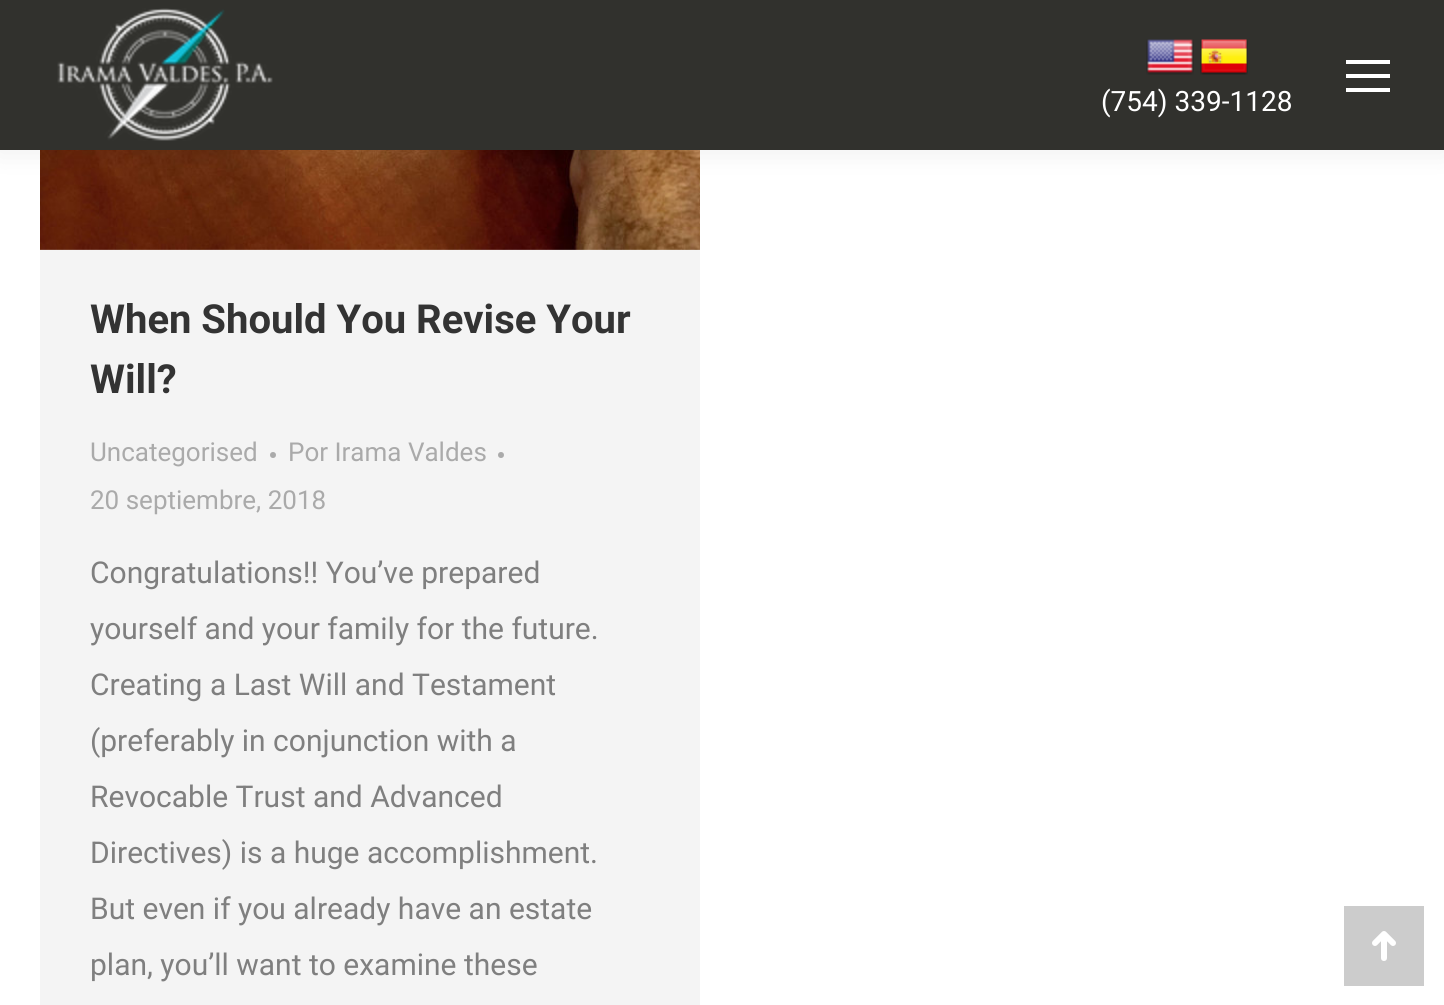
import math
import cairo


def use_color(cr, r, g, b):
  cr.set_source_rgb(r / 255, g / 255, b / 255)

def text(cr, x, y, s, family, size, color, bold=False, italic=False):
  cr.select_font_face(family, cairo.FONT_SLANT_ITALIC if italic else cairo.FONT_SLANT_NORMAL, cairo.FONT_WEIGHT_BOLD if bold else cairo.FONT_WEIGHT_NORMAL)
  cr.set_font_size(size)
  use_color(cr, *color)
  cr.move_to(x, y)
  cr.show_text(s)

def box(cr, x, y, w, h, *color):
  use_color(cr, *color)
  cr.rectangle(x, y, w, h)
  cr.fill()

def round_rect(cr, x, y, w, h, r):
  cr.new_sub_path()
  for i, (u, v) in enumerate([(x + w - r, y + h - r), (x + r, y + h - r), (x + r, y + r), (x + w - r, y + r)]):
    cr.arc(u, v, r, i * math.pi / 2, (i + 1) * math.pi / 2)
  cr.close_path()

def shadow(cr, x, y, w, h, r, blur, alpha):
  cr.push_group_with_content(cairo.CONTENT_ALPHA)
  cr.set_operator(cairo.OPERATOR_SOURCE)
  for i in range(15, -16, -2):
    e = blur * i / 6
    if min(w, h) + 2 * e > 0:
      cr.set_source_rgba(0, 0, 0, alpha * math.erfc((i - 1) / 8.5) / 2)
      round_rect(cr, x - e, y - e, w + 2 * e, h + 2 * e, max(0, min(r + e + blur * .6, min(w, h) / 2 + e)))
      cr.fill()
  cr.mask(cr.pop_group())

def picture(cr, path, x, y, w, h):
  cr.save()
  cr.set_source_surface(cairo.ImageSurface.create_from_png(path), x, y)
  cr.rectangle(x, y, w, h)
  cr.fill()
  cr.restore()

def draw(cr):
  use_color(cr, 255, 255, 255)
  cr.paint()
  box(cr, 40, 249, 660, 756, 244, 244, 244)
  picture(cr, "img_04.png", 40, 150, 660, 100)
  use_color(cr, 0, 0, 0)
  shadow(cr, -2, -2, 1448, 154, 0, 15, 0.07)
  box(cr, 0, 0, 1444, 150, 49, 49, 45)
  picture(cr, "img_01.png", 57, 8, 216, 133)
  box(cr, 1346, 60, 44, 4, 255, 255, 255)
  box(cr, 1346, 74, 44, 4, 255, 255, 255)
  box(cr, 1346, 88, 44, 4, 255, 255, 255)
  picture(cr, "img_02.png", 1146, 39, 48, 36)
  picture(cr, "img_03.png", 1200, 39, 48, 36)
  use_color(cr, 170, 170, 170)
  cr.arc(273, 455, 3, 0, 2 * math.pi)
  cr.fill()
  cr.arc(501, 455, 3, 0, 2 * math.pi)
  cr.fill()
  box(cr, 1344, 906, 80, 80, 204, 204, 204)
  picture(cr, "img_05.png", 1372, 931, 24, 30)
  text(cr, 1101, 111, "(754) 339-1128", "Roboto", 28, (255, 255, 255))
  text(cr, 90, 333, "When Should You Revise Your", "Roboto", 40, (51, 51, 51), bold=True)
  text(cr, 90, 393, "Will?", "Roboto", 40, (51, 51, 51), bold=True)
  text(cr, 90, 461, "Uncategorised", "Roboto", 26, (170, 170, 170))
  text(cr, 288, 461, "Por Irama Valdes", "Roboto", 26, (170, 170, 170))
  text(cr, 90, 509, "20 septiembre, 2018", "Roboto", 26, (170, 170, 170))
  text(cr, 90, 583, "Congratulations!! You’ve prepared", "Roboto", 30, (127, 127, 127))
  text(cr, 90, 639, "yourself and your family for the future.", "Roboto", 30, (127, 127, 127))
  text(cr, 90, 695, "Creating a Last Will and Testament", "Roboto", 30, (127, 127, 127))
  text(cr, 90, 751, "(preferably in conjunction with a", "Roboto", 30, (127, 127, 127))
  text(cr, 90, 807, "Revocable Trust and Advanced", "Roboto", 30, (127, 127, 127))
  text(cr, 90, 863, "Directives) is a huge accomplishment.", "Roboto", 30, (127, 127, 127))
  text(cr, 90, 919, "But even if you already have an estate", "Roboto", 30, (127, 127, 127))
  text(cr, 90, 975, "plan, you’ll want to examine these", "Roboto", 30, (127, 127, 127))


surface = cairo.ImageSurface(cairo.FORMAT_RGB24, 1444, 1005)
cr = cairo.Context(surface)
options = cairo.FontOptions()
options.set_hint_metrics(cairo.HINT_METRICS_OFF)
options.set_hint_style(cairo.HINT_STYLE_NONE)
cr.set_font_options(options)
cr.set_miter_limit(4)
draw(cr)
surface.write_to_png("out.png")
